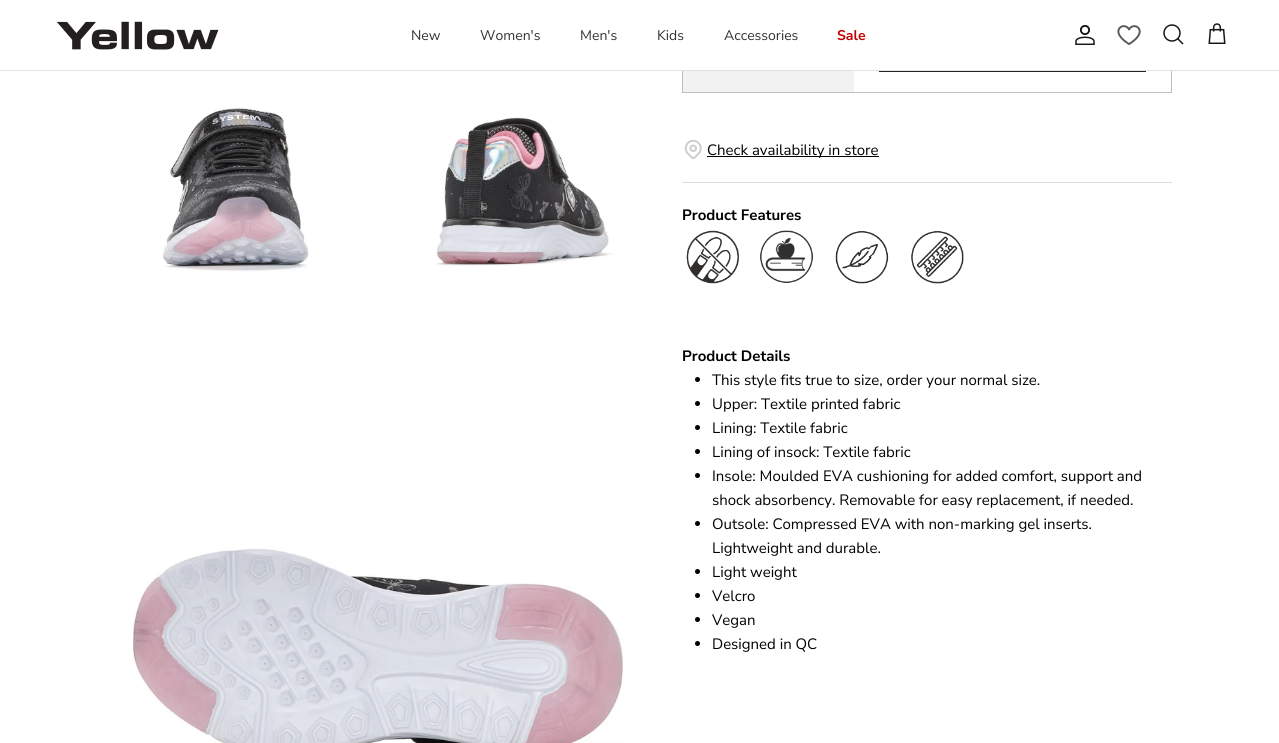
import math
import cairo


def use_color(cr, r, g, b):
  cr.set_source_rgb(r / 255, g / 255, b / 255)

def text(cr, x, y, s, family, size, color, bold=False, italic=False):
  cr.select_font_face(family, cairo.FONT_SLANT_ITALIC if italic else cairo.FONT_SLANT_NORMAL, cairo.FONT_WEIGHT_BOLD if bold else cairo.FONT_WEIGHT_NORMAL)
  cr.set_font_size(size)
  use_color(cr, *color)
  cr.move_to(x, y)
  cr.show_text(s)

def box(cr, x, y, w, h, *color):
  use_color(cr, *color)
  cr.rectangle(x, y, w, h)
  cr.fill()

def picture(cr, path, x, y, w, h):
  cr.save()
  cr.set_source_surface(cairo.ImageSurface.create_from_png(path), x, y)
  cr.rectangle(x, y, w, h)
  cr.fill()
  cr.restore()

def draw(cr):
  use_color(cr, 255, 255, 255)
  cr.paint()
  cr.rectangle(682.5, -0.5, 489, 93)
  use_color(cr, 191, 191, 191)
  cr.set_line_width(1)
  cr.stroke()
  box(cr, 682, 0, 490, 70, 255, 255, 255)
  box(cr, 0, 70, 1279, 1, 223, 227, 232)
  picture(cr, "img_01.png", 57, 21, 162, 29)
  picture(cr, "img_02.png", 1075, 25, 20, 20)
  picture(cr, "img_03.png", 1117, 25, 24, 20)
  cr.arc(1172, 33, 8, 0, 2 * math.pi)
  use_color(cr, 23, 23, 23)
  cr.set_line_width(1.5)
  cr.stroke()
  cr.new_path()
  cr.move_to(1178, 39)
  cr.line_to(1182.5, 43.5)
  cr.set_line_cap(cairo.LINE_CAP_SQUARE)
  cr.stroke()
  picture(cr, "img_04.png", 1208, 23, 18, 21)
  picture(cr, "img_05.png", 163, 108, 146, 164)
  picture(cr, "img_06.png", 435, 117, 179, 149)
  picture(cr, "img_07.png", 133, 548, 491, 195)
  box(cr, 683, 71, 171, 21, 242, 242, 242)
  box(cr, 879, 71, 267, 1, 35, 35, 35)
  picture(cr, "img_08.png", 684, 139, 18, 20)
  box(cr, 707, 156, 172, 1, 0, 0, 0)
  box(cr, 682, 182, 490, 1, 219, 219, 219)
  picture(cr, "img_09.png", 686, 230, 53, 54)
  picture(cr, "img_10.png", 760, 230, 53, 53)
  picture(cr, "img_11.png", 835, 231, 54, 53)
  picture(cr, "img_12.png", 911, 231, 53, 53)
  use_color(cr, 0, 0, 0)
  cr.arc(697.5, 379.5, 2.5, 0, 2 * math.pi)
  cr.fill()
  cr.arc(697.5, 403.5, 2.5, 0, 2 * math.pi)
  cr.fill()
  cr.arc(697.5, 427.5, 2.5, 0, 2 * math.pi)
  cr.fill()
  cr.arc(697.5, 451.5, 2.5, 0, 2 * math.pi)
  cr.fill()
  cr.arc(697.5, 475.5, 2.5, 0, 2 * math.pi)
  cr.fill()
  cr.arc(697.5, 523.5, 2.5, 0, 2 * math.pi)
  cr.fill()
  cr.arc(697.5, 571.5, 2.5, 0, 2 * math.pi)
  cr.fill()
  cr.arc(697.5, 595.5, 2.5, 0, 2 * math.pi)
  cr.fill()
  cr.arc(697.5, 619.5, 2.5, 0, 2 * math.pi)
  cr.fill()
  cr.arc(697.5, 643.5, 2.5, 0, 2 * math.pi)
  cr.fill()
  text(cr, 411, 40, "New", "Nunito Sans", 14, (51, 51, 51))
  text(cr, 480, 40, "Women's", "Nunito Sans", 14, (51, 51, 51))
  text(cr, 580, 40, "Men's", "Nunito Sans", 14, (51, 51, 51))
  text(cr, 657, 40, "Kids", "Nunito Sans", 14, (51, 51, 51))
  text(cr, 724, 40, "Accessories", "Nunito Sans", 14, (51, 51, 51))
  text(cr, 837, 40, "Sale", "Nunito Sans", 14, (194, 0, 0), bold=True)
  text(cr, 707, 155, "Check availability in store", "Nunito Sans", 15, (0, 0, 0))
  text(cr, 682, 220, "Product Features", "Nunito Sans", 15, (0, 0, 0), bold=True)
  text(cr, 682, 361, "Product Details", "Nunito Sans", 15, (0, 0, 0), bold=True)
  text(cr, 712, 385, "This style fits true to size, order your normal size.", "Nunito Sans", 15, (0, 0, 0))
  text(cr, 712, 409, "Upper: Textile printed fabric", "Nunito Sans", 15, (0, 0, 0))
  text(cr, 712, 433, "Lining: Textile fabric", "Nunito Sans", 15, (0, 0, 0))
  text(cr, 712, 457, "Lining of insock: Textile fabric", "Nunito Sans", 15, (0, 0, 0))
  text(cr, 712, 481, "Insole: Moulded EVA cushioning for added comfort, support and", "Nunito Sans", 15, (0, 0, 0))
  text(cr, 712, 505, "shock absorbency. Removable for easy replacement, if needed.", "Nunito Sans", 15, (0, 0, 0))
  text(cr, 712, 529, "Outsole: Compressed EVA with non-marking gel inserts.", "Nunito Sans", 15, (0, 0, 0))
  text(cr, 712, 553, "Lightweight and durable.", "Nunito Sans", 15, (0, 0, 0))
  text(cr, 712, 577, "Light weight", "Nunito Sans", 15, (0, 0, 0))
  text(cr, 712, 601, "Velcro", "Nunito Sans", 15, (0, 0, 0))
  text(cr, 712, 625, "Vegan", "Nunito Sans", 15, (0, 0, 0))
  text(cr, 712, 649, "Designed in QC", "Nunito Sans", 15, (0, 0, 0))


surface = cairo.ImageSurface(cairo.FORMAT_RGB24, 1279, 743)
cr = cairo.Context(surface)
options = cairo.FontOptions()
options.set_hint_metrics(cairo.HINT_METRICS_OFF)
options.set_hint_style(cairo.HINT_STYLE_NONE)
cr.set_font_options(options)
cr.set_miter_limit(4)
draw(cr)
surface.write_to_png("out.png")
